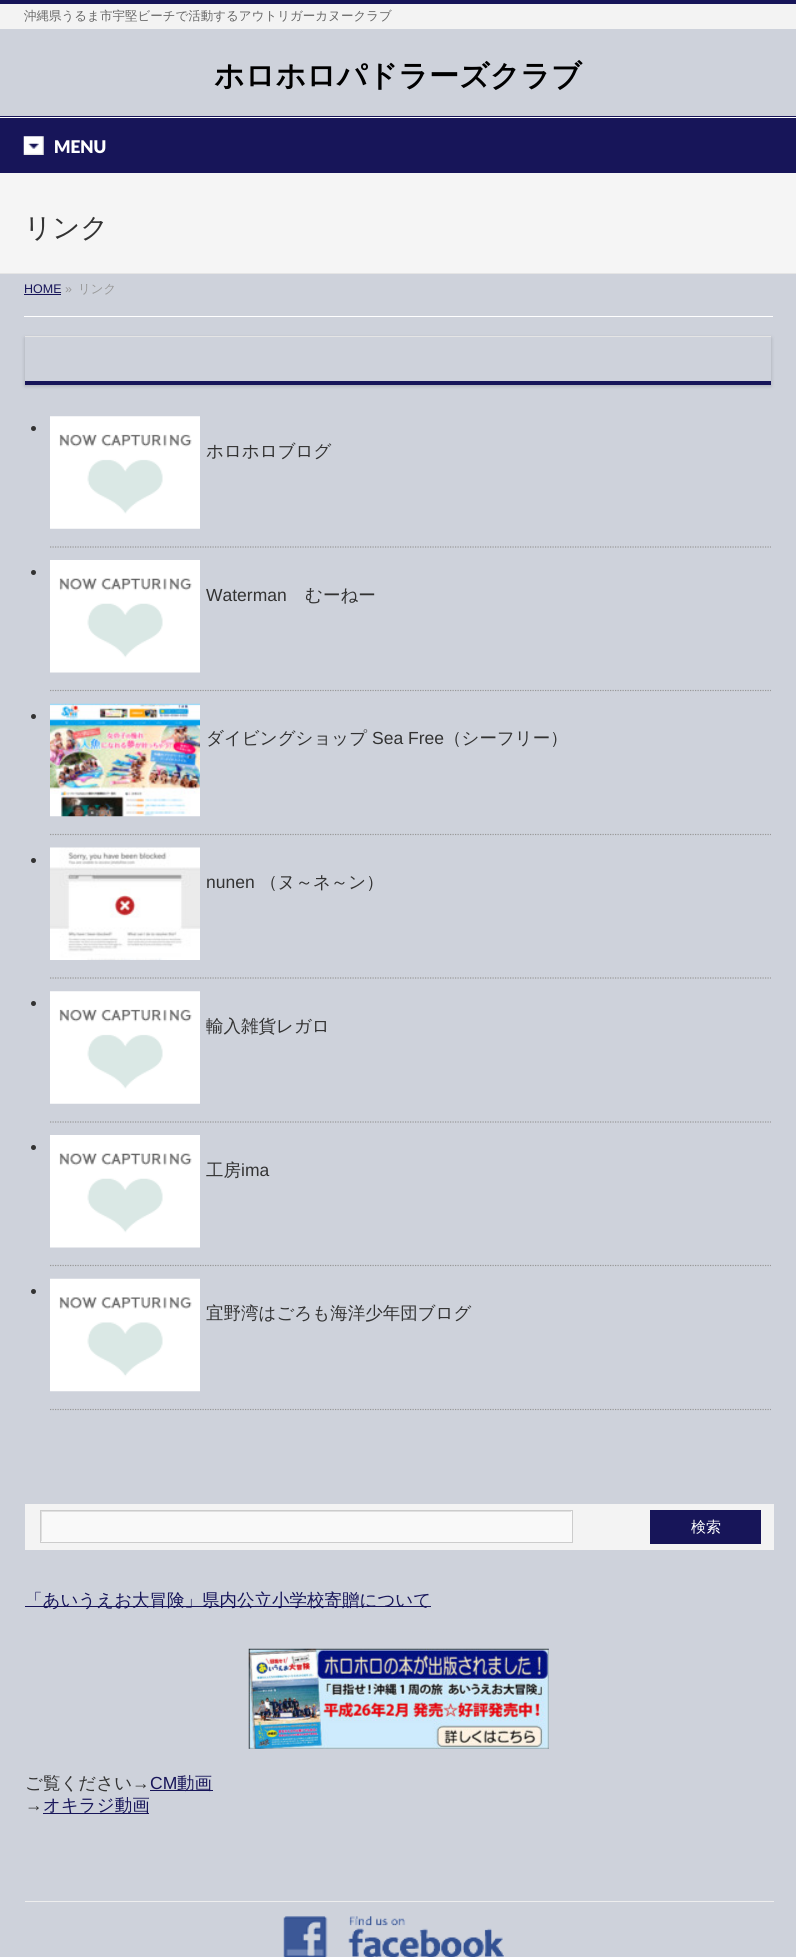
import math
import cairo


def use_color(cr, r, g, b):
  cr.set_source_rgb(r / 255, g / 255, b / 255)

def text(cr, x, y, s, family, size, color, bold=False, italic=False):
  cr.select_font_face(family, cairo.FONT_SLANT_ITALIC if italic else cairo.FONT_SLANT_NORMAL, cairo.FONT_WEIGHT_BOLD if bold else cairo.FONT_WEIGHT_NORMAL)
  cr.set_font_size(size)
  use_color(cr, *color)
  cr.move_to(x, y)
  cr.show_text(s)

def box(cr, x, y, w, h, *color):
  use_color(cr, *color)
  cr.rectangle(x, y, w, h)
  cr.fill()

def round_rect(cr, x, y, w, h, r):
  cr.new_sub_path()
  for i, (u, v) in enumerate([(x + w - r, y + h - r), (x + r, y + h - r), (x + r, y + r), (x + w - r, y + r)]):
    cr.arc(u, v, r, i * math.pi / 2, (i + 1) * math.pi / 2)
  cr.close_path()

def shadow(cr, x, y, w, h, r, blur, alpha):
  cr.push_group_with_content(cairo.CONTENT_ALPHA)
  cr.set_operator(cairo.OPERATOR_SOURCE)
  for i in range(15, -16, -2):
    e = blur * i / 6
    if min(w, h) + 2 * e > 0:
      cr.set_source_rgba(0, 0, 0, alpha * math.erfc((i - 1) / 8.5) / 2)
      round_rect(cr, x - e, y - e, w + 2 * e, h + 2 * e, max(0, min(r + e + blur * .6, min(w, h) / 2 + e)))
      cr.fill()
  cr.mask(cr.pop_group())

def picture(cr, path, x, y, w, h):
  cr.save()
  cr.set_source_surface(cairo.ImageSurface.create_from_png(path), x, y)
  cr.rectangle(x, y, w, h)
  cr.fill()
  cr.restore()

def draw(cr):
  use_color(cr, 206, 210, 219)
  cr.paint()
  box(cr, 0, 4, 796, 25, 243, 243, 243)
  box(cr, 0, 0, 796, 4, 23, 21, 89)
  box(cr, 0, 117, 796, 1, 255, 255, 255)
  box(cr, 0, 116, 796, 1, 23, 21, 89)
  box(cr, 0, 118, 796, 55, 23, 21, 89)
  picture(cr, "img_01.png", 23, 136, 21, 19)
  box(cr, 0, 173, 796, 100, 245, 245, 245)
  box(cr, 0, 273, 796, 1, 229, 229, 229)
  box(cr, 24, 316, 749, 1, 255, 255, 255)
  box(cr, 24, 294, 37, 1, 23, 21, 89)
  cr.save()
  cr.set_fill_rule(cairo.FILL_RULE_EVEN_ODD)
  cr.new_path()
  cr.move_to(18, 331)
  cr.line_to(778, 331)
  cr.line_to(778, 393)
  cr.line_to(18, 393)
  cr.close_path()
  cr.move_to(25, 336)
  cr.line_to(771, 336)
  cr.line_to(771, 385)
  cr.line_to(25, 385)
  cr.close_path()
  cr.clip()
  use_color(cr, 0, 0, 0)
  shadow(cr, 25, 338, 746, 48, 0, 2, 0.2)
  cr.restore()
  box(cr, 25, 336, 746, 1, 229, 229, 229)
  box(cr, 25, 381, 746, 4, 23, 21, 89)
  cr.new_path()
  cr.move_to(50, 547)
  cr.line_to(771, 547)
  use_color(cr, 153, 153, 153)
  cr.set_line_width(1.2)
  cr.set_dash([1.25, 1.25])
  cr.stroke()
  use_color(cr, 51, 51, 51)
  cr.arc(33.5, 428.5, 2.5, 0, 2 * math.pi)
  cr.fill()
  picture(cr, "img_02.png", 50, 416, 150, 113)
  cr.new_path()
  cr.move_to(50, 690.5)
  cr.line_to(771, 690.5)
  use_color(cr, 153, 153, 153)
  cr.stroke()
  use_color(cr, 51, 51, 51)
  cr.arc(33.5, 572.5, 2.5, 0, 2 * math.pi)
  cr.fill()
  picture(cr, "img_03.png", 50, 560, 150, 113)
  cr.new_path()
  cr.move_to(50, 834.5)
  cr.line_to(771, 834.5)
  use_color(cr, 153, 153, 153)
  cr.stroke()
  use_color(cr, 51, 51, 51)
  cr.arc(33.5, 716.5, 2.5, 0, 2 * math.pi)
  cr.fill()
  picture(cr, "img_04.png", 50, 703, 150, 114)
  cr.new_path()
  cr.move_to(50, 978)
  cr.line_to(771, 978)
  use_color(cr, 153, 153, 153)
  cr.stroke()
  use_color(cr, 51, 51, 51)
  cr.arc(33.5, 860.5, 2.5, 0, 2 * math.pi)
  cr.fill()
  picture(cr, "img_05.png", 50, 847, 150, 113)
  cr.new_path()
  cr.move_to(50, 1122)
  cr.line_to(771, 1122)
  use_color(cr, 153, 153, 153)
  cr.stroke()
  use_color(cr, 51, 51, 51)
  cr.arc(33.5, 1003.5, 2.5, 0, 2 * math.pi)
  cr.fill()
  picture(cr, "img_02.png", 50, 991, 150, 113)
  cr.new_path()
  cr.move_to(50, 1265.5)
  cr.line_to(771, 1265.5)
  use_color(cr, 153, 153, 153)
  cr.stroke()
  use_color(cr, 51, 51, 51)
  cr.arc(33.5, 1147.5, 2.5, 0, 2 * math.pi)
  cr.fill()
  picture(cr, "img_06.png", 50, 1135, 150, 113)
  cr.new_path()
  cr.move_to(50, 1409.5)
  cr.line_to(771, 1409.5)
  use_color(cr, 153, 153, 153)
  cr.stroke()
  use_color(cr, 51, 51, 51)
  cr.arc(33.5, 1291.5, 2.5, 0, 2 * math.pi)
  cr.fill()
  picture(cr, "img_07.png", 50, 1278, 150, 114)
  box(cr, 25, 1504, 749, 46, 243, 243, 243)
  box(cr, 41, 1511, 531, 31, 249, 249, 249)
  cr.save()
  cr.rectangle(41, 1511, 530, 30)
  cr.clip()
  use_color(cr, 224, 224, 224)
  cr.set_fill_rule(cairo.FILL_RULE_EVEN_ODD)
  cr.new_path()
  cr.move_to(-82, 1388)
  cr.line_to(695, 1388)
  cr.line_to(695, 1665)
  cr.line_to(-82, 1665)
  cr.close_path()
  cr.move_to(42, 1512)
  cr.line_to(572, 1512)
  cr.line_to(572, 1542)
  cr.line_to(42, 1542)
  cr.close_path()
  cr.fill()
  cr.restore()
  cr.rectangle(40.5, 1510.5, 532, 32)
  use_color(cr, 204, 204, 204)
  cr.set_line_width(1)
  cr.set_dash([])
  cr.stroke()
  box(cr, 650, 1510, 111, 34, 23, 21, 89)
  box(cr, 25, 1606, 406, 1, 23, 21, 89)
  picture(cr, "img_08.png", 248, 1648, 301, 101)
  box(cr, 150, 1790, 63, 1, 23, 21, 89)
  box(cr, 43, 1813, 106, 1, 23, 21, 89)
  box(cr, 25, 1901, 749, 1, 238, 238, 238)
  picture(cr, "img_09.png", 283, 1916, 221, 41)
  text(cr, 24, 20, "沖縄県うるま市宇堅ビーチで活動するアウトリガーカヌークラブ", "WenQuanYi Zen Hei Medium", 12.5, (102, 102, 102))
  text(cr, 214, 86, "ホロホロパドラーズクラブ", "WenQuanYi Zen Hei", 30, (0, 0, 0), bold=True)
  text(cr, 54, 153, "MENU", "Lato Black", 17.5, (255, 255, 255))
  text(cr, 24, 237, "リンク", "WenQuanYi Zen Hei Medium", 27.5, (51, 51, 51))
  text(cr, 24, 293, "HOME", "Liberation Sans", 12.5, (23, 21, 89))
  text(cr, 65, 293, "»", "Liberation Sans", 12.5, (153, 153, 153))
  text(cr, 78, 293, "リンク", "WenQuanYi Zen Hei Medium", 12.5, (153, 153, 153))
  text(cr, 206, 457, "ホロホロブログ", "WenQuanYi Zen Hei Medium", 17.5, (51, 51, 51))
  text(cr, 206, 601, "Waterman", "Liberation Sans", 17.5, (51, 51, 51))
  text(cr, 305, 601, "むーねー", "WenQuanYi Zen Hei Medium", 17.5, (51, 51, 51))
  text(cr, 206, 744, "ダイビングショップ", "WenQuanYi Zen Hei Medium", 17.5, (51, 51, 51))
  text(cr, 372, 744, "Sea Free", "Liberation Sans", 17.5, (51, 51, 51))
  text(cr, 444, 744, "（シーフリー）", "WenQuanYi Zen Hei Medium", 17.5, (51, 51, 51))
  text(cr, 206, 888, "nunen", "Liberation Sans", 17.5, (51, 51, 51))
  text(cr, 260, 888, "（ヌ～ネ～ン）", "WenQuanYi Zen Hei Medium", 17.5, (51, 51, 51))
  text(cr, 206, 1032, "輸入雑貨レガロ", "WenQuanYi Zen Hei Medium", 17.5, (51, 51, 51))
  text(cr, 206, 1176, "工房", "WenQuanYi Zen Hei Medium", 17.5, (51, 51, 51))
  text(cr, 241, 1176, "ima", "Liberation Sans", 17.5, (51, 51, 51))
  text(cr, 206, 1319, "宜野湾はごろも海洋少年団ブログ", "WenQuanYi Zen Hei Medium", 17.5, (51, 51, 51))
  text(cr, 691, 1532, "検索", "WenQuanYi Zen Hei Medium", 15, (255, 255, 255))
  text(cr, 25, 1606, "「あいうえお大冒険」県内公立小学校寄贈について", "WenQuanYi Zen Hei Medium", 17.5, (23, 21, 89))
  text(cr, 25, 1789, "ご覧ください", "WenQuanYi Zen Hei Medium", 17.5, (51, 51, 51))
  text(cr, 132, 1789, "→", "Liberation Sans", 17.5, (51, 51, 51))
  text(cr, 150, 1789, "CM", "Liberation Sans", 17.5, (23, 21, 89))
  text(cr, 177, 1789, "動画", "WenQuanYi Zen Hei Medium", 17.5, (23, 21, 89))
  text(cr, 25, 1811, "→", "Liberation Sans", 17.5, (51, 51, 51))
  text(cr, 43, 1811, "オキラジ動画", "WenQuanYi Zen Hei Medium", 17.5, (23, 21, 89))


surface = cairo.ImageSurface(cairo.FORMAT_RGB24, 796, 1957)
cr = cairo.Context(surface)
options = cairo.FontOptions()
options.set_hint_metrics(cairo.HINT_METRICS_OFF)
options.set_hint_style(cairo.HINT_STYLE_NONE)
cr.set_font_options(options)
cr.set_miter_limit(4)
draw(cr)
surface.write_to_png("out.png")
